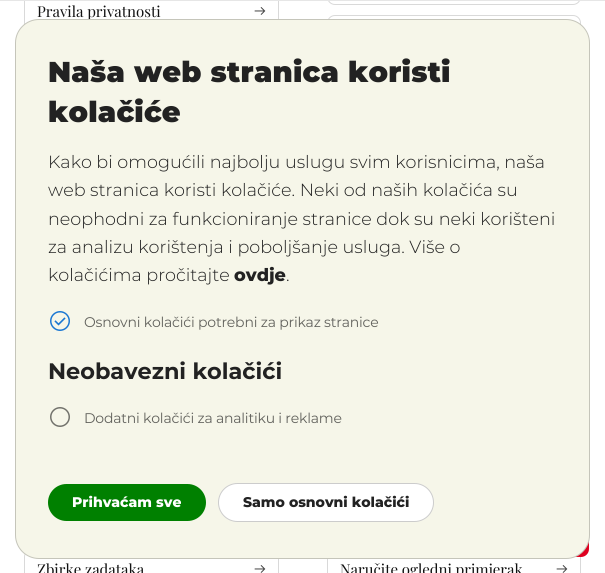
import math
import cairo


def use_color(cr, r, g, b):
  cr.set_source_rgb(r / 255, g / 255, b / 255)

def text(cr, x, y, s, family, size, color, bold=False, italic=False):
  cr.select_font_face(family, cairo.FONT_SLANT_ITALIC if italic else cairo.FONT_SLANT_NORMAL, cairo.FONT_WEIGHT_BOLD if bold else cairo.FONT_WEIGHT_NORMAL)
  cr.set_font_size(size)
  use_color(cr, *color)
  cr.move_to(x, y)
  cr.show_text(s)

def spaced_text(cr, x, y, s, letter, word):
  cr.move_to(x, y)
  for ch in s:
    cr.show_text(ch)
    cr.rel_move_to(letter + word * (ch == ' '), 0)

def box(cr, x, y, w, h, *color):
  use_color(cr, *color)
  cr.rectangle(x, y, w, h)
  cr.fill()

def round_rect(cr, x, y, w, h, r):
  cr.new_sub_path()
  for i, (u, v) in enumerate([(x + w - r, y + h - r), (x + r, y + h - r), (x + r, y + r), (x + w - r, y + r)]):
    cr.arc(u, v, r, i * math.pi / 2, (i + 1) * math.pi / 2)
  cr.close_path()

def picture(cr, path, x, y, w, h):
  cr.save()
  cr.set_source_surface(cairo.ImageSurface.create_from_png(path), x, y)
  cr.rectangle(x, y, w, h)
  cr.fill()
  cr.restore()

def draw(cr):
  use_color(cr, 255, 255, 255)
  cr.paint()
  cr.rectangle(24.5, -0.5, 254, 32)
  use_color(cr, 217, 217, 217)
  cr.set_line_width(1)
  cr.stroke()
  round_rect(cr, 327.5, -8.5, 253, 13, 7.5)
  cr.stroke()
  box(cr, 0, 0, 605, 1, 230, 230, 230)
  picture(cr, "img_01.png", 254, 7, 12, 8)
  round_rect(cr, 327.5, 15.5, 253, 40, 7.5)
  use_color(cr, 217, 217, 217)
  cr.stroke()
  round_rect(cr, 24.5, 549.5, 254, 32, 7.5)
  cr.stroke()
  picture(cr, "img_01.png", 254, 565, 12, 8)
  cr.rectangle(327.5, 549.5, 253, 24)
  cr.stroke()
  picture(cr, "img_01.png", 556, 565, 12, 8)
  use_color(cr, 222, 0, 31)
  round_rect(cr, 541, 509, 48, 48, 8)
  cr.fill()
  text(cr, 37, 17, "Pravila privatnosti", "Playfair Display", 15, (17, 17, 17))
  text(cr, 37, 575, "Zbirke zadataka", "Playfair Display", 15, (17, 17, 17))
  text(cr, 340, 575, "Naručite ogledni primjerak", "Playfair Display", 15, (17, 17, 17))
  use_color(cr, 246, 246, 233)
  round_rect(cr, 15, 19, 575, 540, 24)
  cr.fill()
  round_rect(cr, 15.5, 19.5, 574, 539, 23.5)
  cr.set_source_rgba(0, 0, 0, 0.2)
  cr.stroke()
  cr.select_font_face("Montserrat Black")
  cr.set_font_size(28.75)
  use_color(cr, 34, 34, 34)
  spaced_text(cr, 48, 82, "Naša web stranica koristi", 0.25, 0)
  spaced_text(cr, 48, 122, "kolačiće", 0.25, 0)
  text(cr, 48, 168, "Kako bi omogućili najbolju uslugu svim korisnicima, naša", "Montserrat Light", 17.6, (34, 34, 34))
  text(cr, 48, 196, "web stranica koristi kolačiće. Neki od naših kolačića su", "Montserrat Light", 17.6, (34, 34, 34))
  text(cr, 48, 225, "neophodni za funkcioniranje stranice dok su neki korišteni", "Montserrat Light", 17.6, (34, 34, 34))
  text(cr, 48, 253, "za analizu korištenja i poboljšanje usluga. Više o", "Montserrat Light", 17.6, (34, 34, 34))
  text(cr, 48, 281, "kolačićima pročitajte", "Montserrat Light", 17.6, (34, 34, 34))
  text(cr, 234, 281, "ovdje", "Montserrat ExtraBold", 17.6, (34, 34, 34))
  text(cr, 286, 281, ".", "Montserrat Light", 17.6, (34, 34, 34))
  picture(cr, "img_02.png", 50, 311, 20, 20)
  cr.select_font_face("Montserrat")
  cr.set_font_size(14)
  use_color(cr, 98, 98, 93)
  spaced_text(cr, 84, 327, "Osnovni kolačići potrebni za prikaz stranice", -0.2, 0)
  text(cr, 48, 379, "Neobavezni kolačići", "Montserrat", 22.4, (34, 34, 34), bold=True)
  picture(cr, "img_03.png", 50, 407, 20, 20)
  cr.select_font_face("Montserrat")
  cr.set_font_size(14)
  use_color(cr, 98, 98, 93)
  spaced_text(cr, 84, 423, "Dodatni kolačići za analitiku i reklame", -0.2, 0)
  use_color(cr, 0, 128, 0)
  round_rect(cr, 48, 484, 158, 37, 18.5)
  cr.fill()
  text(cr, 72, 507, "Prihvaćam sve", "Montserrat ExtraBold", 14, (255, 255, 255))
  round_rect(cr, 218, 483, 216, 39, 19.5)
  cr.fill()
  round_rect(cr, 218.5, 483.5, 215, 38, 19)
  cr.set_source_rgba(0, 0, 0, 0.2)
  cr.stroke()
  text(cr, 243, 507, "Samo osnovni kolačići", "Montserrat ExtraBold", 14, (34, 34, 34))


surface = cairo.ImageSurface(cairo.FORMAT_RGB24, 605, 573)
cr = cairo.Context(surface)
options = cairo.FontOptions()
options.set_hint_metrics(cairo.HINT_METRICS_OFF)
options.set_hint_style(cairo.HINT_STYLE_NONE)
cr.set_font_options(options)
cr.set_miter_limit(4)
draw(cr)
surface.write_to_png("out.png")
